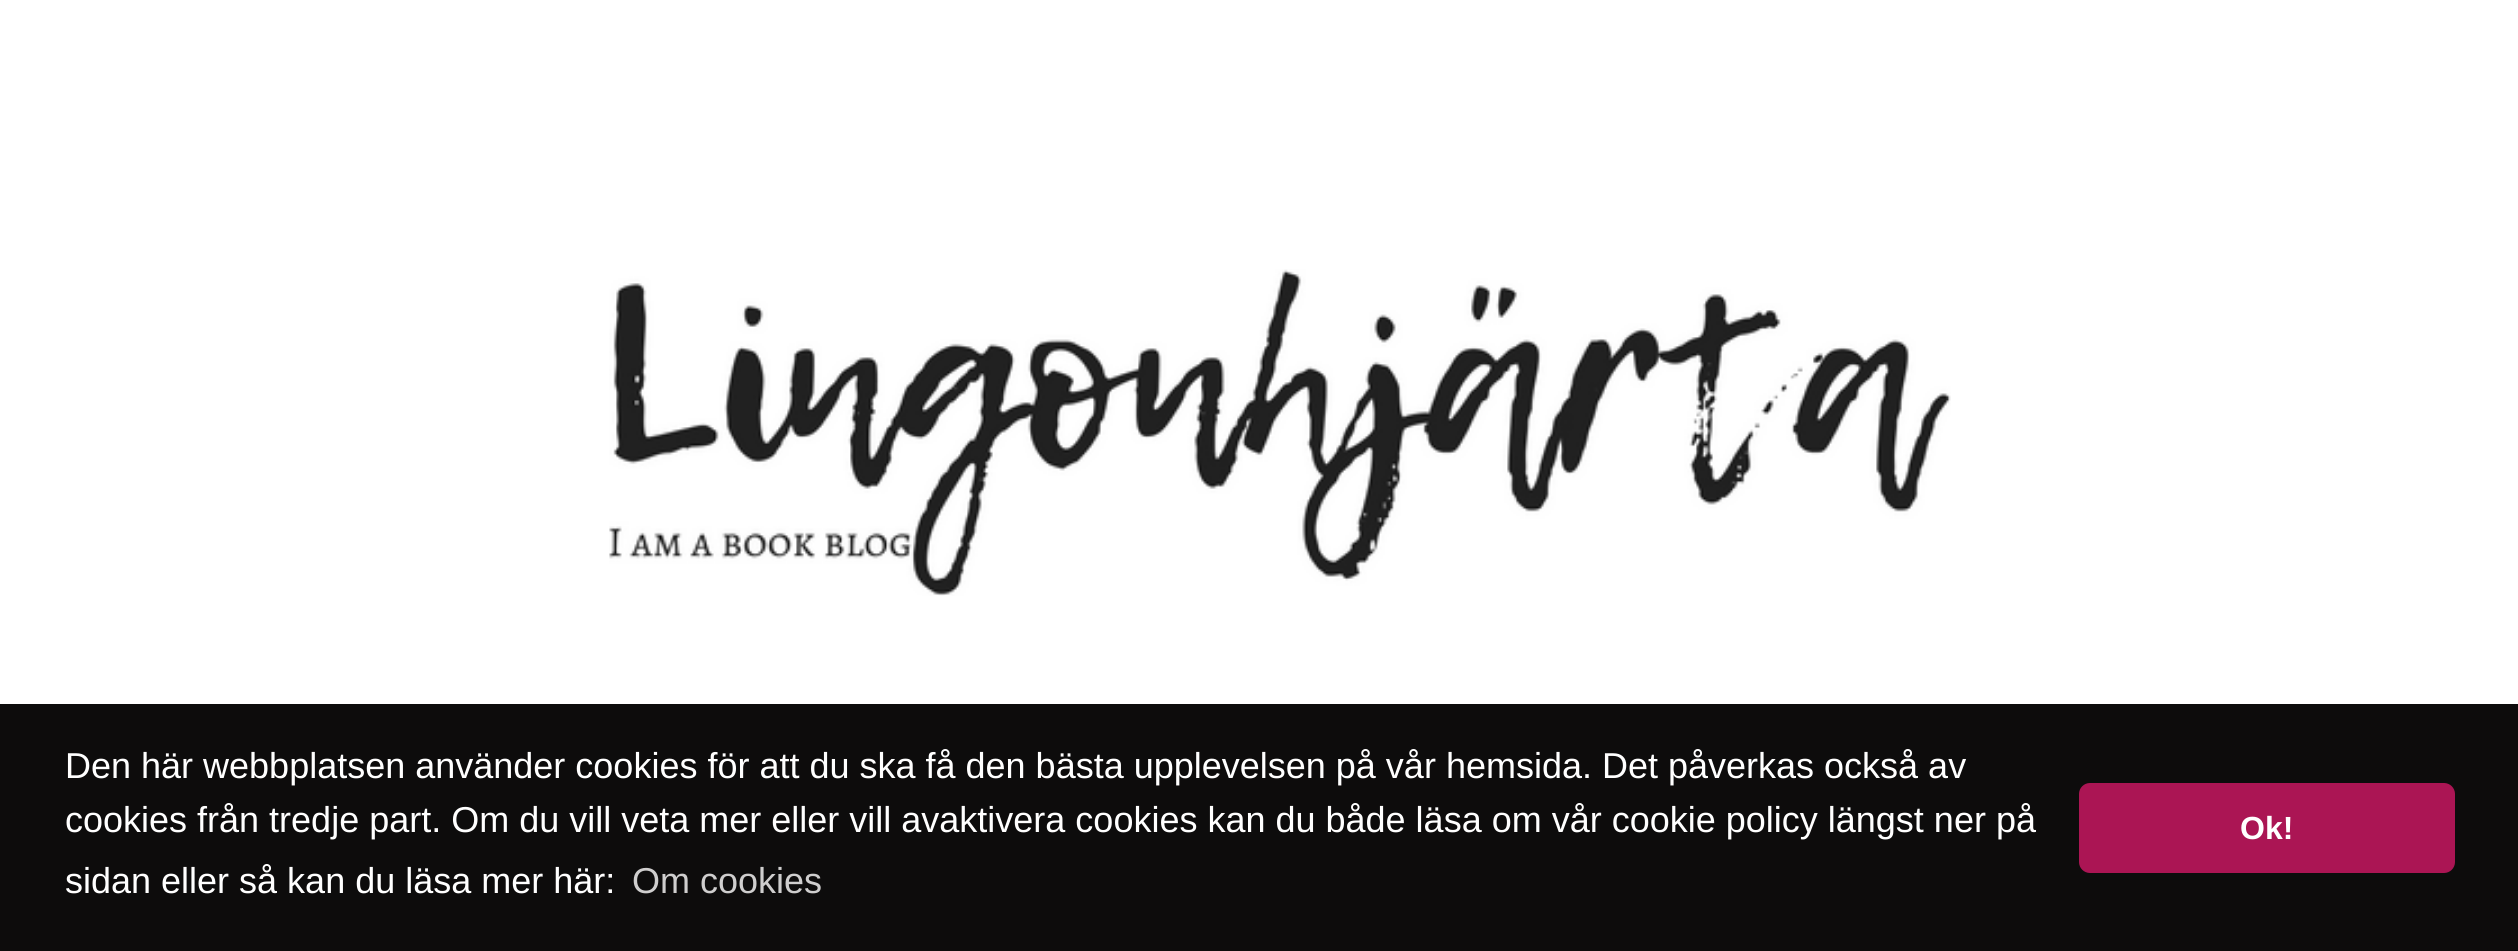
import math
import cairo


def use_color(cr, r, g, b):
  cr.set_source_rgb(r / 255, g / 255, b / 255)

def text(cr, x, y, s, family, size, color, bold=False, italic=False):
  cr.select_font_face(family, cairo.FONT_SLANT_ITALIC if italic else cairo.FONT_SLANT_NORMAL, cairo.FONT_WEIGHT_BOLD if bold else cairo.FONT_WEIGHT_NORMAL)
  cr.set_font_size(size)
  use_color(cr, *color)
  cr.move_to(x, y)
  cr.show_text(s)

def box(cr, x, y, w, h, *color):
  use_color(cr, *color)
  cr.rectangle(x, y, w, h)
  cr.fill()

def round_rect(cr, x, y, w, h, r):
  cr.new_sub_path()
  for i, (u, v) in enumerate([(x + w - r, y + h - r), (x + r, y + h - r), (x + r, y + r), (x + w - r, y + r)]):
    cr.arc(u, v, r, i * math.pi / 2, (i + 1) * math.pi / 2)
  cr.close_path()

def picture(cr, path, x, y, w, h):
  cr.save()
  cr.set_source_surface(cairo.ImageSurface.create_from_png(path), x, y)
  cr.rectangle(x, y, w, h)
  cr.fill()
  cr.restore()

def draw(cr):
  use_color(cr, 255, 255, 255)
  cr.paint()
  picture(cr, "img_01.png", 609, 269, 1342, 327)
  box(cr, 0, 704, 2518, 247, 13, 12, 12)
  use_color(cr, 171, 21, 84)
  round_rect(cr, 2079, 783, 376, 90, 11)
  cr.fill()
  text(cr, 65, 778, "Den här webbplatsen använder cookies för att du ska få den bästa upplevelsen på vår hemsida. Det påverkas också av", "Liberation Sans", 36, (255, 255, 255))
  text(cr, 65, 832, "cookies från tredje part. Om du vill veta mer eller vill avaktivera cookies kan du både läsa om vår cookie policy längst ner på", "Liberation Sans", 36, (255, 255, 255))
  text(cr, 65, 893, "sidan eller så kan du läsa mer här:", "Liberation Sans", 36, (255, 255, 255))
  text(cr, 632, 893, "Om cookies", "Liberation Sans", 36, (207, 206, 206))
  text(cr, 2240, 839, "Ok!", "Liberation Sans", 32, (255, 255, 255), bold=True)


surface = cairo.ImageSurface(cairo.FORMAT_RGB24, 2518, 951)
cr = cairo.Context(surface)
options = cairo.FontOptions()
options.set_hint_metrics(cairo.HINT_METRICS_OFF)
options.set_hint_style(cairo.HINT_STYLE_NONE)
cr.set_font_options(options)
cr.set_miter_limit(4)
draw(cr)
surface.write_to_png("out.png")
